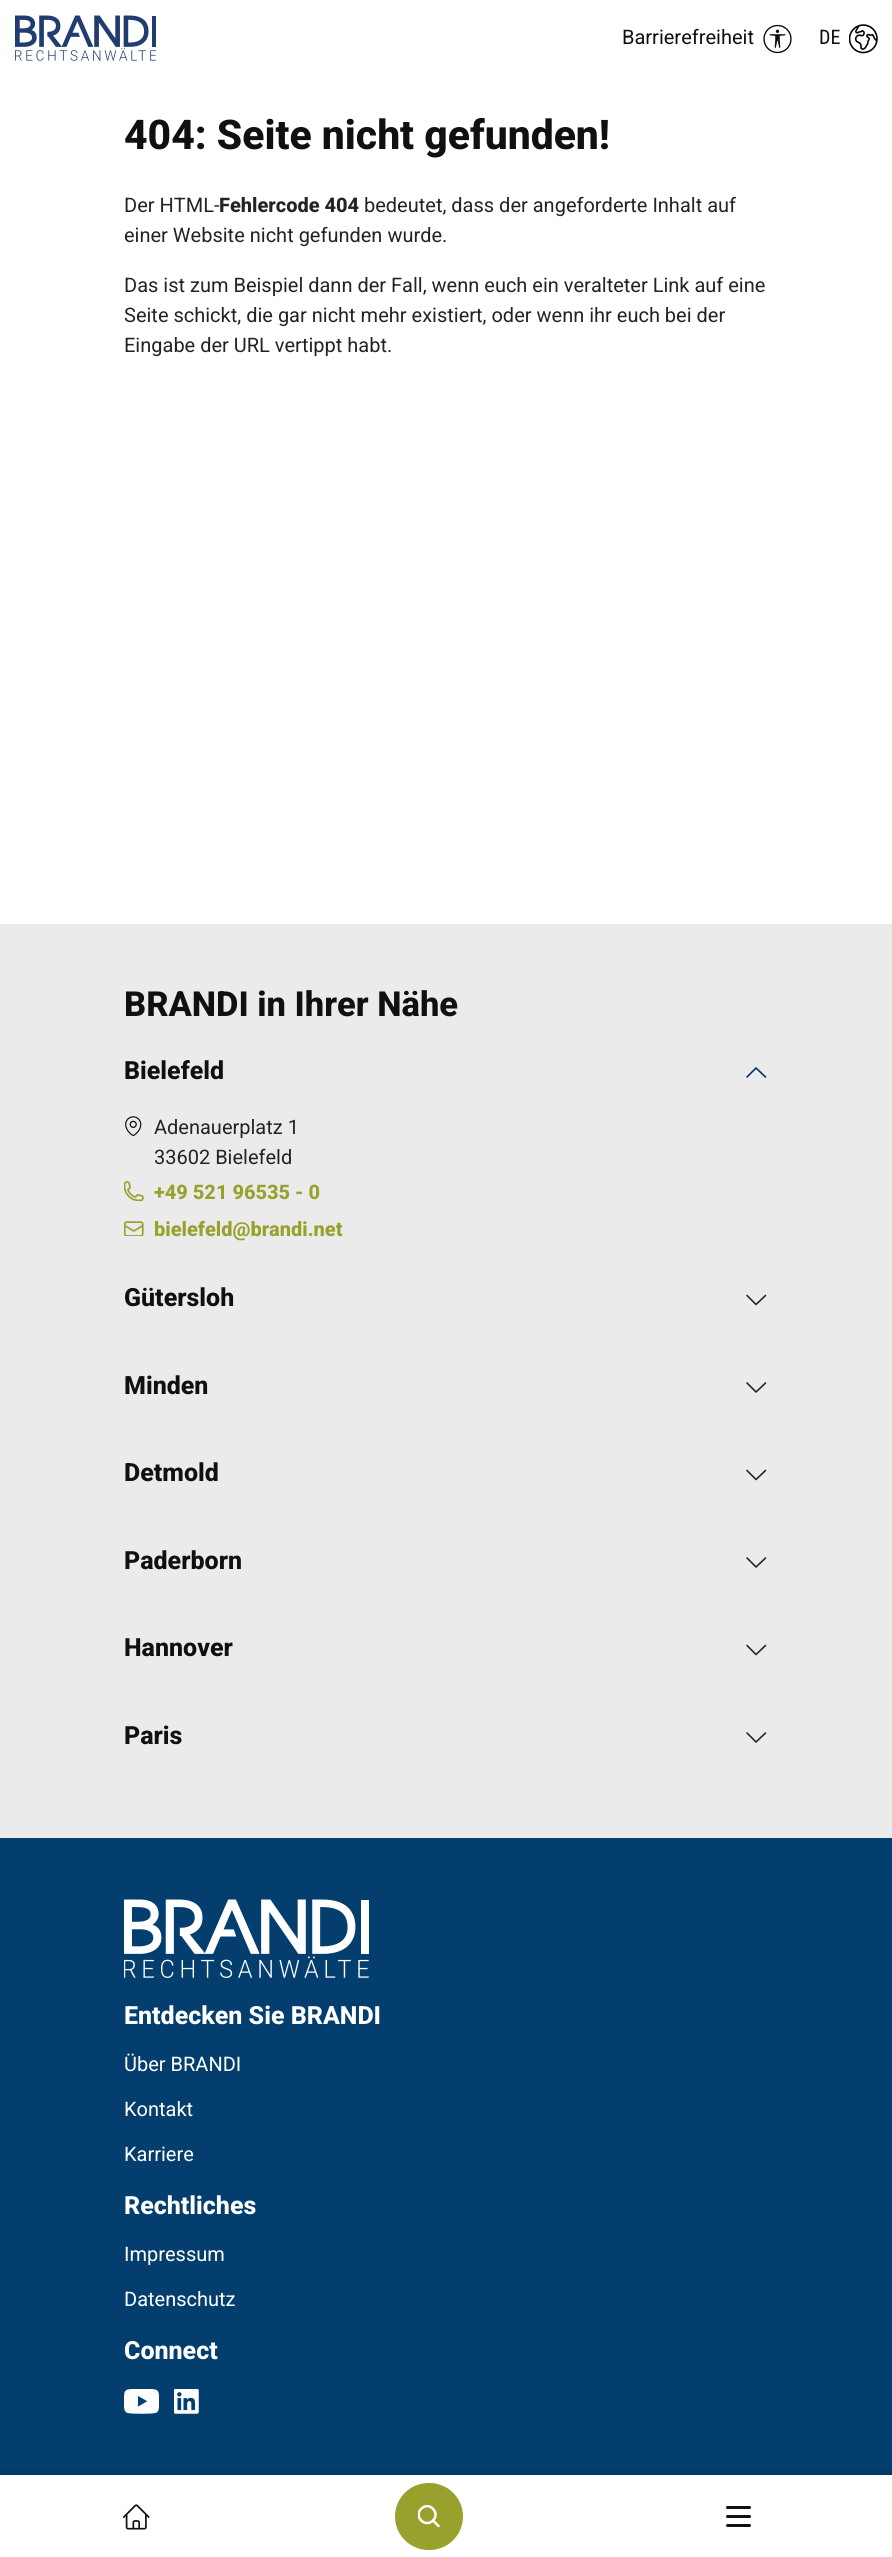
import math
import cairo


def use_color(cr, r, g, b):
  cr.set_source_rgb(r / 255, g / 255, b / 255)

def text(cr, x, y, s, family, size, color, bold=False, italic=False):
  cr.select_font_face(family, cairo.FONT_SLANT_ITALIC if italic else cairo.FONT_SLANT_NORMAL, cairo.FONT_WEIGHT_BOLD if bold else cairo.FONT_WEIGHT_NORMAL)
  cr.set_font_size(size)
  use_color(cr, *color)
  cr.move_to(x, y)
  cr.show_text(s)

def box(cr, x, y, w, h, *color):
  use_color(cr, *color)
  cr.rectangle(x, y, w, h)
  cr.fill()

def round_rect(cr, x, y, w, h, r):
  cr.new_sub_path()
  for i, (u, v) in enumerate([(x + w - r, y + h - r), (x + r, y + h - r), (x + r, y + r), (x + w - r, y + r)]):
    cr.arc(u, v, r, i * math.pi / 2, (i + 1) * math.pi / 2)
  cr.close_path()

def shadow(cr, x, y, w, h, r, blur, alpha):
  cr.push_group_with_content(cairo.CONTENT_ALPHA)
  cr.set_operator(cairo.OPERATOR_SOURCE)
  for i in range(15, -16, -2):
    e = blur * i / 6
    if min(w, h) + 2 * e > 0:
      cr.set_source_rgba(0, 0, 0, alpha * math.erfc((i - 1) / 8.5) / 2)
      round_rect(cr, x - e, y - e, w + 2 * e, h + 2 * e, max(0, min(r + e + blur * .6, min(w, h) / 2 + e)))
      cr.fill()
  cr.mask(cr.pop_group())

def picture(cr, path, x, y, w, h):
  cr.save()
  cr.set_source_surface(cairo.ImageSurface.create_from_png(path), x, y)
  cr.rectangle(x, y, w, h)
  cr.fill()
  cr.restore()

def draw(cr):
  use_color(cr, 255, 255, 255)
  cr.paint()
  picture(cr, "img_01.png", 15, 15, 141, 46)
  picture(cr, "img_02.png", 763, 24, 29, 30)
  picture(cr, "img_03.png", 849, 24, 29, 30)
  box(cr, 0, 1838, 892, 637, 3, 62, 110)
  use_color(cr, 0, 0, 0)
  shadow(cr, 0, 2473, 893, 82, 0, 5, 0.16)
  box(cr, 0, 2475, 892, 82, 255, 255, 255)
  picture(cr, "img_04.png", 123, 2504, 27, 26)
  use_color(cr, 151, 161, 44)
  round_rect(cr, 395, 2483, 68, 67, 33.5)
  cr.fill()
  cr.save()
  cr.rectangle(418, 2505, 22, 23)
  cr.clip()
  cr.new_path()
  cr.move_to(438.5, 2526)
  cr.line_to(433, 2520.5)
  cr.move_to(433, 2520.5)
  cr.curve_to(440.5, 2513, 429.5, 2501, 421.5, 2508.5)
  cr.curve_to(413, 2516, 425, 2528.5, 433, 2520.5)
  cr.close_path()
  use_color(cr, 255, 255, 255)
  cr.set_line_width(2.5)
  cr.set_line_cap(cairo.LINE_CAP_ROUND)
  cr.set_line_join(cairo.LINE_JOIN_ROUND)
  cr.stroke()
  cr.restore()
  use_color(cr, 16, 16, 16)
  round_rect(cr, 726, 2506, 25, 3, 1.5)
  cr.fill()
  round_rect(cr, 726, 2515, 25, 3, 1.5)
  cr.fill()
  round_rect(cr, 726, 2524, 25, 3, 1.5)
  cr.fill()
  box(cr, 0, 924, 892, 914, 235, 235, 235)
  cr.new_path()
  cr.move_to(765.5, 1077)
  cr.line_to(756, 1068)
  cr.line_to(747, 1077)
  use_color(cr, 5, 44, 101)
  cr.set_line_width(1.6)
  cr.set_line_cap(cairo.LINE_CAP_ROUND)
  cr.set_line_join(cairo.LINE_JOIN_ROUND)
  cr.stroke()
  picture(cr, "img_05.png", 125, 1116, 17, 20)
  picture(cr, "img_06.png", 124, 1181, 20, 20)
  picture(cr, "img_07.png", 124, 1221, 20, 15)
  cr.new_path()
  cr.move_to(747, 1295.5)
  cr.line_to(756, 1304.5)
  cr.line_to(765.5, 1295.5)
  use_color(cr, 33, 37, 41)
  cr.stroke()
  cr.new_path()
  cr.move_to(747, 1383)
  cr.line_to(756, 1392)
  cr.line_to(765.5, 1383)
  cr.stroke()
  cr.new_path()
  cr.move_to(747, 1470.5)
  cr.line_to(756, 1479.5)
  cr.line_to(765.5, 1470.5)
  cr.stroke()
  cr.new_path()
  cr.move_to(747, 1558)
  cr.line_to(756, 1567)
  cr.line_to(765.5, 1558)
  cr.stroke()
  cr.new_path()
  cr.move_to(747, 1645.5)
  cr.line_to(756, 1654.5)
  cr.line_to(765.5, 1645.5)
  cr.stroke()
  cr.new_path()
  cr.move_to(747, 1733)
  cr.line_to(756, 1742)
  cr.line_to(765.5, 1733)
  cr.stroke()
  picture(cr, "img_08.png", 124, 1899, 245, 79)
  picture(cr, "img_09.png", 124, 2389, 35, 25)
  picture(cr, "img_10.png", 174, 2389, 25, 25)
  text(cr, 622, 44, "Barrierefreiheit", "Roboto", 20, (16, 16, 16))
  text(cr, 819, 44, "DE", "Roboto Condensed", 20, (16, 16, 16))
  text(cr, 124, 149, "404: Seite nicht gefunden!", "Roboto ExtraBold", 40.9, (16, 16, 16))
  text(cr, 124, 212, "Der HTML-", "Roboto", 20, (33, 37, 41))
  text(cr, 219, 212, "Fehlercode 404", "Roboto ExtraBold", 20, (33, 37, 41))
  text(cr, 364, 212, "bedeutet, dass der angeforderte Inhalt auf", "Roboto", 20, (33, 37, 41))
  text(cr, 124, 242, "einer Website nicht gefunden wurde.", "Roboto", 20, (33, 37, 41))
  text(cr, 124, 292, "Das ist zum Beispiel dann der Fall, wenn euch ein veralteter Link auf eine", "Roboto", 20, (33, 37, 41))
  text(cr, 124, 322, "Seite schickt, die gar nicht mehr existiert, oder wenn ihr euch bei der", "Roboto", 20, (33, 37, 41))
  text(cr, 124, 352, "Eingabe der URL vertippt habt.", "Roboto", 20, (33, 37, 41))
  text(cr, 124, 1016, "BRANDI in Ihrer Nähe", "Roboto ExtraBold", 34.5, (16, 16, 16))
  text(cr, 124, 1079, "Bielefeld", "Roboto ExtraBold", 25, (16, 16, 16))
  text(cr, 154, 1134, "Adenauerplatz 1", "Roboto", 20, (33, 37, 41))
  text(cr, 154, 1164, "33602 Bielefeld", "Roboto", 20, (33, 37, 41))
  text(cr, 154, 1199, "+49 521 96535 - 0", "Roboto ExtraBold", 20, (151, 161, 44))
  text(cr, 154, 1236, "bielefeld@brandi.net", "Roboto ExtraBold", 20, (151, 161, 44))
  text(cr, 124, 1306, "Gütersloh", "Roboto ExtraBold", 25, (16, 16, 16))
  text(cr, 124, 1394, "Minden", "Roboto ExtraBold", 25, (16, 16, 16))
  text(cr, 124, 1481, "Detmold", "Roboto ExtraBold", 25, (16, 16, 16))
  text(cr, 124, 1569, "Paderborn", "Roboto ExtraBold", 25, (16, 16, 16))
  text(cr, 124, 1656, "Hannover", "Roboto ExtraBold", 25, (16, 16, 16))
  text(cr, 124, 1744, "Paris", "Roboto ExtraBold", 25, (16, 16, 16))
  text(cr, 124, 2024, "Entdecken Sie BRANDI", "Roboto ExtraBold", 25, (255, 255, 255))
  text(cr, 124, 2071, "Über BRANDI", "Roboto", 20, (255, 255, 255))
  text(cr, 124, 2116, "Kontakt", "Roboto", 20, (255, 255, 255))
  text(cr, 124, 2161, "Karriere", "Roboto", 20, (255, 255, 255))
  text(cr, 124, 2214, "Rechtliches", "Roboto ExtraBold", 25, (255, 255, 255))
  text(cr, 124, 2261, "Impressum", "Roboto", 20, (255, 255, 255))
  text(cr, 124, 2306, "Datenschutz", "Roboto", 20, (255, 255, 255))
  text(cr, 124, 2359, "Connect", "Roboto ExtraBold", 25, (255, 255, 255))


surface = cairo.ImageSurface(cairo.FORMAT_RGB24, 892, 2557)
cr = cairo.Context(surface)
options = cairo.FontOptions()
options.set_hint_metrics(cairo.HINT_METRICS_OFF)
options.set_hint_style(cairo.HINT_STYLE_NONE)
cr.set_font_options(options)
cr.set_miter_limit(4)
draw(cr)
surface.write_to_png("out.png")
